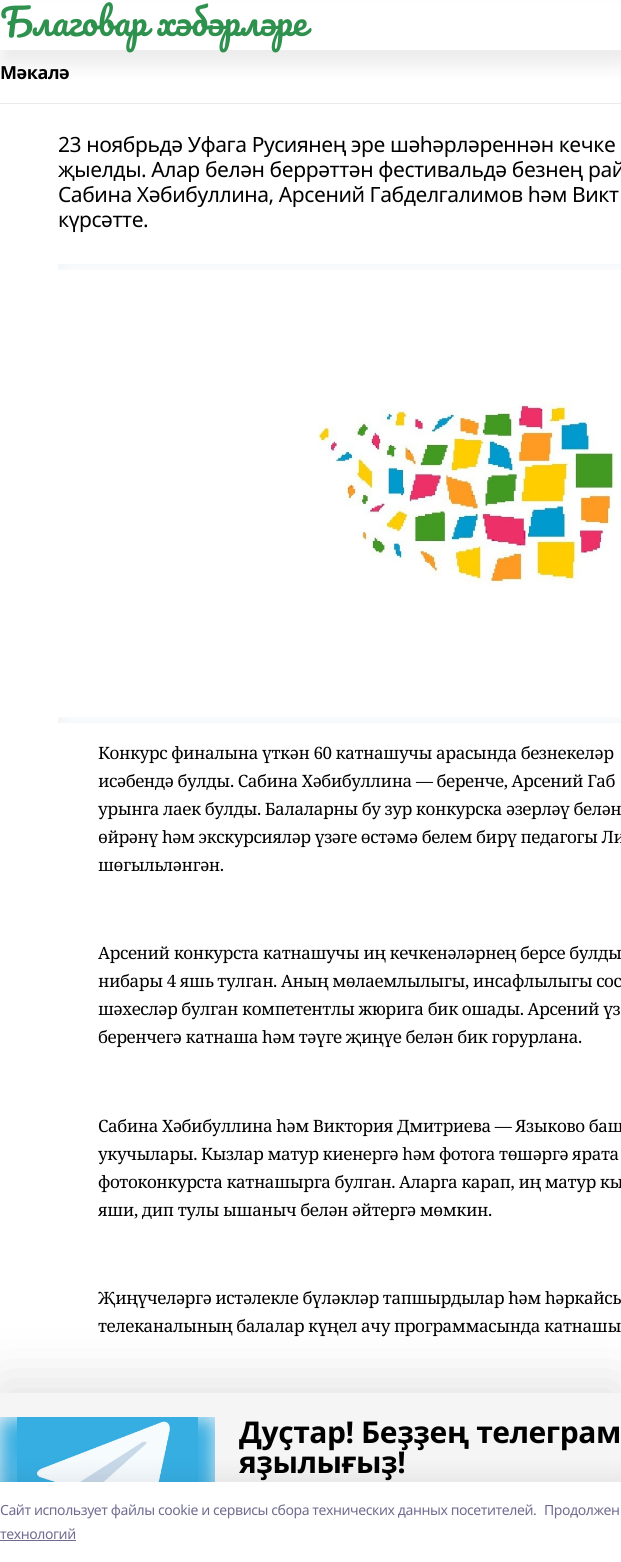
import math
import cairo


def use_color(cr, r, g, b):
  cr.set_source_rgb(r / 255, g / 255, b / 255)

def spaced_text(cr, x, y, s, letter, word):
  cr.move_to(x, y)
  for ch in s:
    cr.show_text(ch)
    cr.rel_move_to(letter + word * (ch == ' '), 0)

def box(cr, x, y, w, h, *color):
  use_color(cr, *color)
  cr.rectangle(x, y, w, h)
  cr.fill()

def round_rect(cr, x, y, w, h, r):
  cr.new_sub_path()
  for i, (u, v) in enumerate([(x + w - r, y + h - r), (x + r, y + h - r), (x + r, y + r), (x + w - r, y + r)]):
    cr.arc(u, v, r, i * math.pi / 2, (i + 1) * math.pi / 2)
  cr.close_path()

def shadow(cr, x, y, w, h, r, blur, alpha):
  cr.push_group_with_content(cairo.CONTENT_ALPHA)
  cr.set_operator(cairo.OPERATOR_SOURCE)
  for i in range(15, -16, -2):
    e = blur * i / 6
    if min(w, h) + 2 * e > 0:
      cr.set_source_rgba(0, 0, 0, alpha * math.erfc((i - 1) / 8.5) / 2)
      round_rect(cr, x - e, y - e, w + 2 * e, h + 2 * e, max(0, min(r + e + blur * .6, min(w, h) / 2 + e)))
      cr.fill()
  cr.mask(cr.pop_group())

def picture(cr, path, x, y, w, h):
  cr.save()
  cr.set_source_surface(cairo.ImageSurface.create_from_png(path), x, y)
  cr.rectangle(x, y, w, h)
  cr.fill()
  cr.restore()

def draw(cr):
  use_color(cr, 255, 255, 255)
  cr.paint()
  use_color(cr, 0, 0, 0)
  shadow(cr, 0, 15, 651, 50, 0, 10, 0.08)
  box(cr, 0, 4, 621, 46, 255, 255, 255)
  box(cr, 0, 103, 621, 1, 234, 234, 234)
  box(cr, 58, 264, 563, 459, 237, 242, 247)
  picture(cr, "img_01.png", 58, 264, 563, 459)
  picture(cr, "img_02.png", 58, 270, 563, 447)
  use_color(cr, 0, 0, 0)
  shadow(cr, 0, 1383, 621, 169, 0, 30, 0.12)
  box(cr, 0, 1393, 621, 89, 245, 245, 245)
  box(cr, 0, 1417, 215, 65, 237, 242, 247)
  picture(cr, "img_03.png", 0, 1417, 215, 65)
  picture(cr, "img_04.png", 17, 1417, 181, 65)
  use_color(cr, 20, 20, 43)
  shadow(cr, 0, 1476, 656, 80, 0, 11.5, 0.08)
  box(cr, 0, 1482, 621, 80, 255, 255, 255)
  box(cr, 0, 1540, 76, 1, 111, 108, 144)
  cr.select_font_face("Pacifico")
  cr.set_font_size(36)
  use_color(cr, 46, 145, 78)
  spaced_text(cr, 0, 36, "Благовар хәбәрләре", -0.42, 0)
  cr.select_font_face("Noto Sans", cairo.FONT_SLANT_NORMAL, cairo.FONT_WEIGHT_BOLD)
  cr.set_font_size(18)
  use_color(cr, 0, 0, 0)
  spaced_text(cr, 0, 79, "Мәкалә", -0.42, 0)
  cr.select_font_face("Noto Sans")
  cr.set_font_size(21)
  spaced_text(cr, 58, 152, "23 ноябрьдә Уфага Русиянең эре шәһәрләреннән кечке", -0.42, 0)
  spaced_text(cr, 58, 177, "җыелды. Алар белән беррәттән фестивальдә безнең рай", -0.42, 0)
  spaced_text(cr, 58, 202, "Сабина Хәбибуллина, Арсений Габделгалимов һәм Викт", -0.42, 0)
  spaced_text(cr, 58, 227, "күрсәтте.", -0.42, 0)
  cr.select_font_face("Noto Serif")
  cr.set_font_size(17)
  spaced_text(cr, 98, 759, "Конкурс финалына үткән 60 катнашучы арасында безнекеләр", -0.42, 0)
  spaced_text(cr, 98, 787, "исәбендә булды. Сабина Хәбибуллина — беренче, Арсений Габ", -0.42, 0)
  spaced_text(cr, 98, 815, "урынга лаек булды. Балаларны бу зур конкурска әзерләү белән", -0.42, 0)
  spaced_text(cr, 98, 843, "өйрәнү һәм экскурсияләр үзәге өстәмә белем бирү педагогы Ли", -0.42, 0)
  spaced_text(cr, 98, 871, "шөгыльләнгән.", -0.42, 0)
  spaced_text(cr, 98, 959, "Арсений конкурста катнашучы иң кечкенәләрнең берсе булды", -0.42, 0)
  spaced_text(cr, 98, 987, "нибары 4 яшь тулган. Аның мөлаемлылыгы, инсафлылыгы сос", -0.42, 0)
  spaced_text(cr, 98, 1015, "шәхесләр булган компетентлы жюрига бик ошады. Арсений үз", -0.42, 0)
  spaced_text(cr, 98, 1043, "беренчегә катнаша һәм тәүге җиңүе белән бик горурлана.", -0.42, 0)
  spaced_text(cr, 98, 1132, "Сабина Хәбибуллина һәм Виктория Дмитриева — Языково баш", -0.42, 0)
  spaced_text(cr, 98, 1160, "укучылары. Кызлар матур киенергә һәм фотога төшәргә ярата", -0.42, 0)
  spaced_text(cr, 98, 1188, "фотоконкурста катнашырга булган. Аларга карап, иң матур кы", -0.42, 0)
  spaced_text(cr, 98, 1216, "яши, дип тулы ышаныч белән әйтергә мөмкин.", -0.42, 0)
  spaced_text(cr, 98, 1304, "Җиңүчеләргә истәлекле бүләкләр тапшырдылар һәм һәркайсы", -0.42, 0)
  spaced_text(cr, 98, 1332, "телеканалының балалар күңел ачу программасында катнашы", -0.42, 0)
  cr.select_font_face("Noto Sans", cairo.FONT_SLANT_NORMAL, cairo.FONT_WEIGHT_BOLD)
  cr.set_font_size(30)
  spaced_text(cr, 239, 1443, "Дуҫтар! Беҙҙең телеграм", -0.42, 0)
  spaced_text(cr, 239, 1473, "яҙылығыҙ!", -0.42, 0)
  cr.select_font_face("Noto Sans")
  cr.set_font_size(14)
  use_color(cr, 111, 108, 144)
  spaced_text(cr, 0, 1515, "Cайт использует файлы cookie и сервисы сбора технических данных посетителей.", -0.42, 0)
  spaced_text(cr, 544, 1515, "Продолжен", -0.42, 0)
  spaced_text(cr, 0, 1539, "технологий", -0.42, 0)


surface = cairo.ImageSurface(cairo.FORMAT_RGB24, 621, 1562)
cr = cairo.Context(surface)
options = cairo.FontOptions()
options.set_hint_metrics(cairo.HINT_METRICS_OFF)
options.set_hint_style(cairo.HINT_STYLE_NONE)
cr.set_font_options(options)
cr.set_miter_limit(4)
draw(cr)
surface.write_to_png("out.png")
